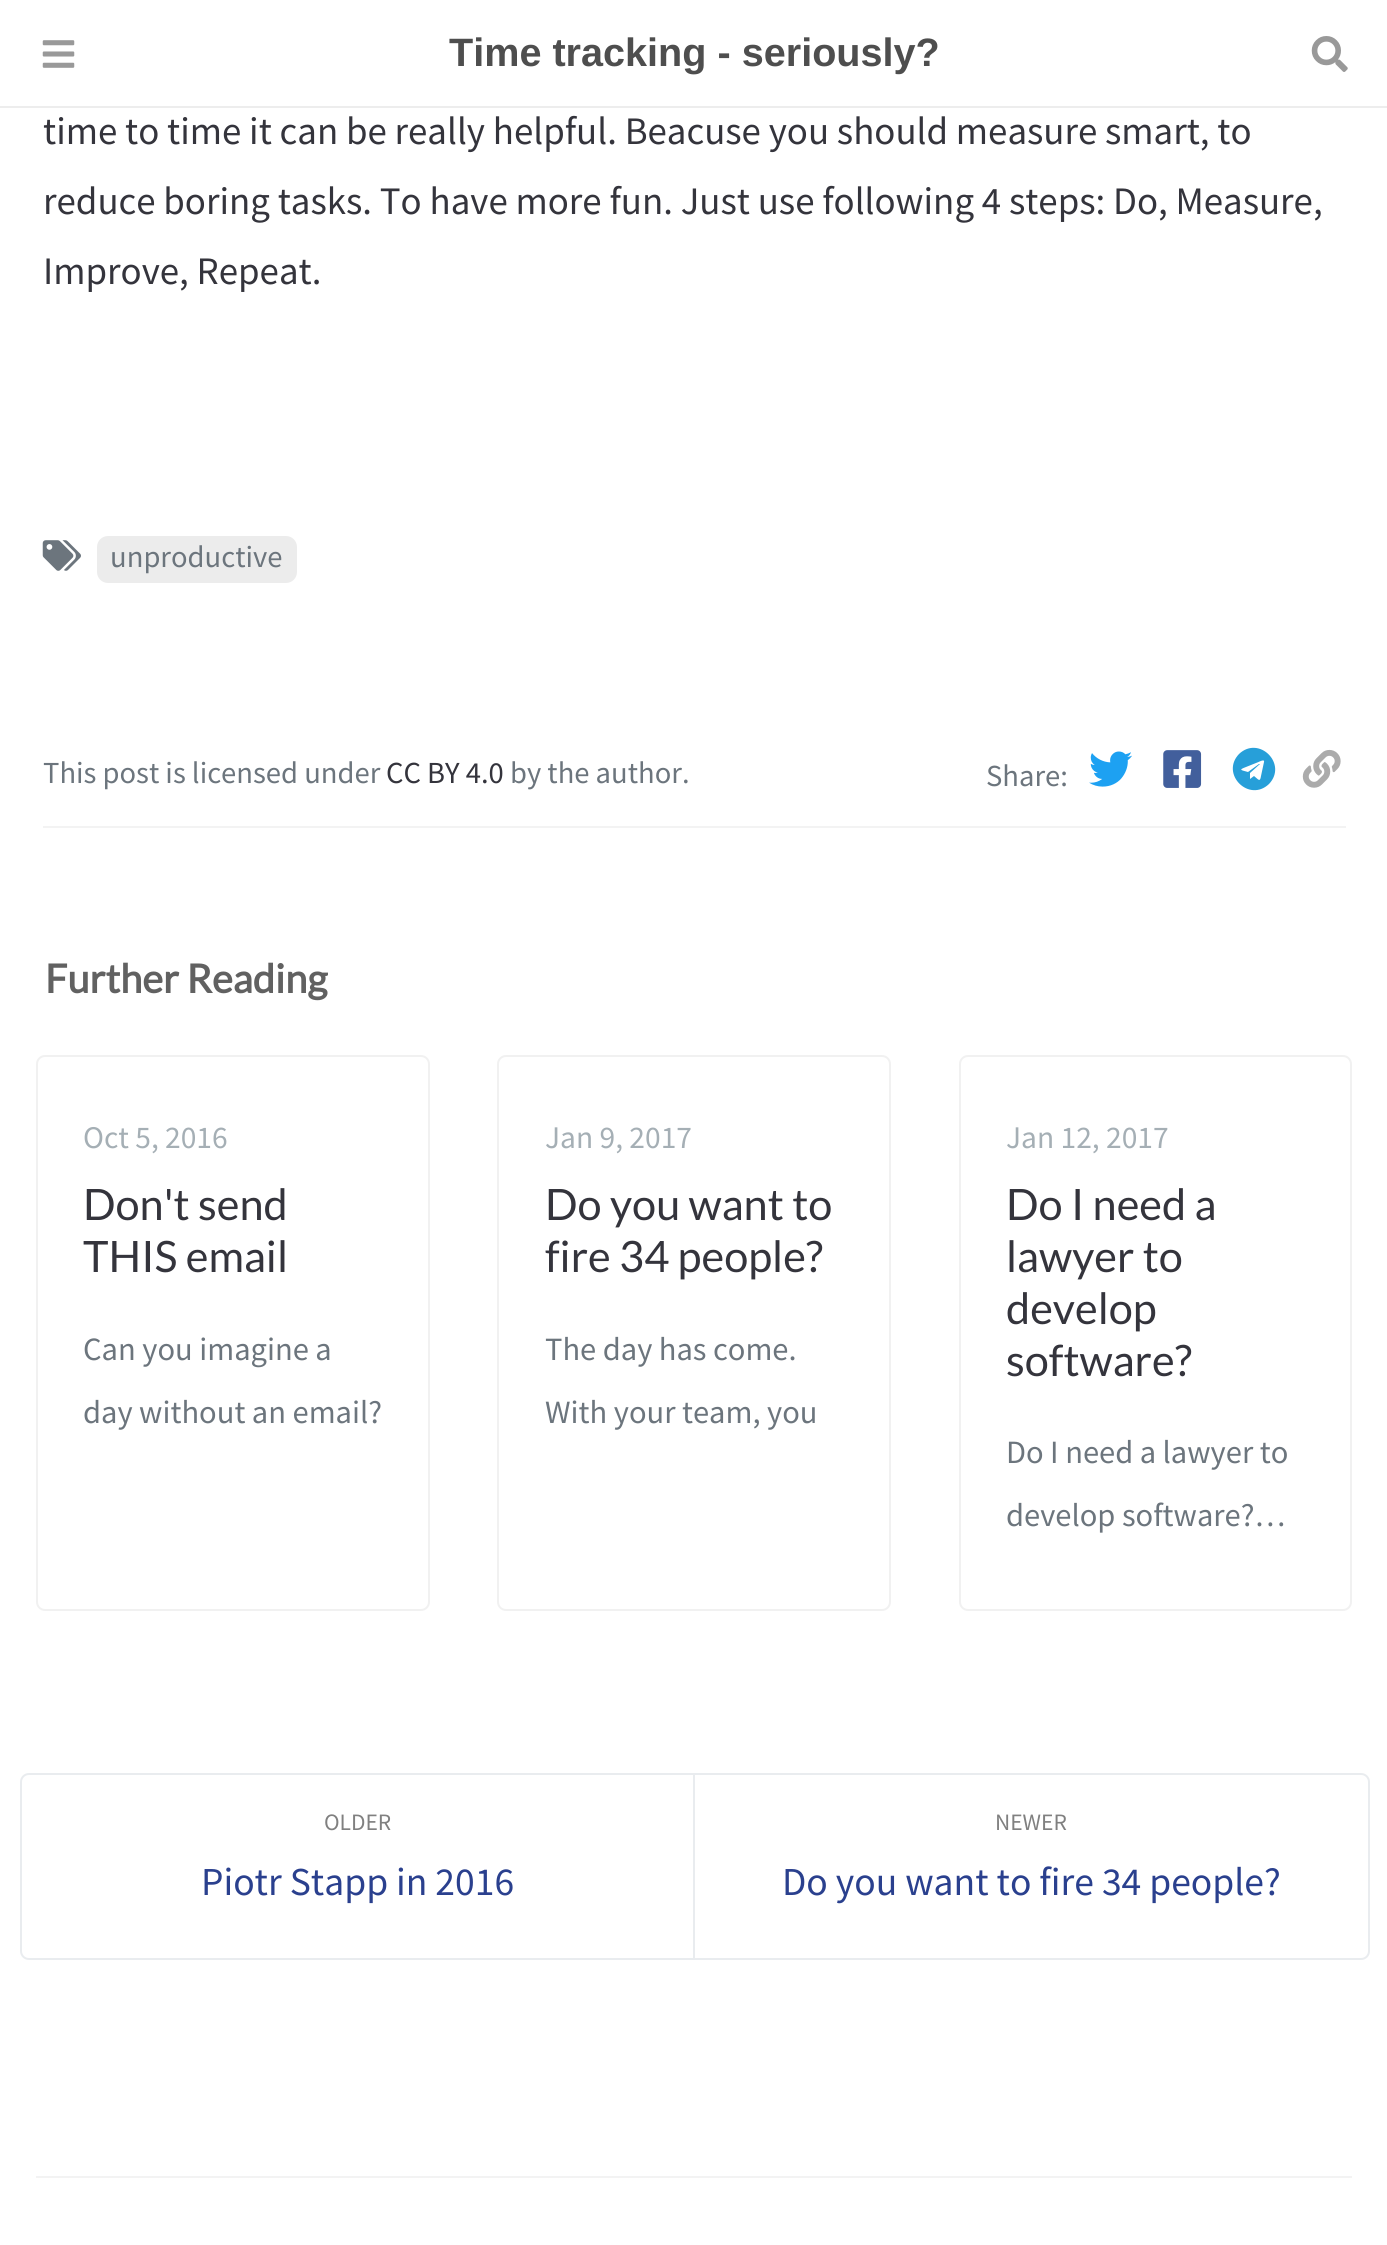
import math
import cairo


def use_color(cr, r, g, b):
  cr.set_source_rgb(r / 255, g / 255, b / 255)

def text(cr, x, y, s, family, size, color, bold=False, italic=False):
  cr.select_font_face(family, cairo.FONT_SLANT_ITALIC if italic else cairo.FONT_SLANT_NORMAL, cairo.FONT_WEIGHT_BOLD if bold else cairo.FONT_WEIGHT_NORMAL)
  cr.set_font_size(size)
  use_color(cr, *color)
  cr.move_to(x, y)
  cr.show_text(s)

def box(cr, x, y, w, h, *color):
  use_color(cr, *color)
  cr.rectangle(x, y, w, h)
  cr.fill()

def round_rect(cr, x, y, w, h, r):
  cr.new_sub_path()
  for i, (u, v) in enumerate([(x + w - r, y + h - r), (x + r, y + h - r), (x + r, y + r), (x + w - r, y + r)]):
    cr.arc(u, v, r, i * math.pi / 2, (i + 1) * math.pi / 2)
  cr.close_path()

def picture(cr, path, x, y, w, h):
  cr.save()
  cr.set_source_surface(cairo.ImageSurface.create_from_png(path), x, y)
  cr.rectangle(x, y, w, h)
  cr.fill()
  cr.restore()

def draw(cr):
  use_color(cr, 255, 255, 255)
  cr.paint()
  box(cr, 0, 106, 1387, 2, 237, 237, 237)
  picture(cr, "img_01.png", 42, 40, 33, 28)
  picture(cr, "img_02.png", 1311, 36, 37, 36)
  box(cr, 43, 826, 1303, 2, 243, 243, 243)
  picture(cr, "img_03.png", 42, 540, 39, 31)
  use_color(cr, 236, 236, 236)
  round_rect(cr, 97, 536, 200, 47, 11)
  cr.fill()
  picture(cr, "img_04.png", 1089, 751, 43, 36)
  picture(cr, "img_05.png", 1163, 750, 39, 38)
  use_color(cr, 39, 159, 217)
  cr.new_path()
  cr.move_to(1239, 754)
  cr.curve_to(1259, 735, 1288, 764, 1269, 784)
  cr.curve_to(1249, 803, 1220, 774, 1239, 754)
  cr.close_path()
  cr.move_to(1264, 762)
  cr.curve_to(1265, 758, 1257, 763, 1256, 763)
  cr.line_to(1246, 767)
  cr.curve_to(1238, 770, 1241, 770, 1248, 772)
  cr.line_to(1259, 764)
  cr.line_to(1260, 764)
  cr.line_to(1250, 773)
  cr.line_to(1250, 779)
  cr.line_to(1254, 776)
  cr.curve_to(1258, 779, 1260, 783, 1261, 776)
  cr.close_path()
  cr.fill()
  picture(cr, "img_06.png", 1302, 749, 39, 39)
  round_rect(cr, 37, 1056, 392, 554, 8)
  use_color(cr, 241, 241, 241)
  cr.stroke()
  round_rect(cr, 498, 1056, 392, 554, 8)
  cr.stroke()
  round_rect(cr, 960, 1056, 391, 554, 8)
  cr.stroke()
  cr.new_path()
  cr.move_to(29, 1774)
  cr.line_to(694, 1774)
  cr.line_to(694, 1959)
  cr.line_to(29, 1959)
  cr.curve_to(24.5, 1959, 21, 1955.5, 21, 1951)
  cr.line_to(21, 1782)
  cr.curve_to(21, 1777.5, 24.5, 1774, 29, 1774)
  cr.close_path()
  use_color(cr, 233, 236, 239)
  cr.stroke()
  cr.new_path()
  cr.move_to(694, 1774)
  cr.line_to(1361, 1774)
  cr.curve_to(1365.5, 1774, 1369, 1777.5, 1369, 1782)
  cr.line_to(1369, 1951)
  cr.curve_to(1369, 1955.5, 1365.5, 1959, 1361, 1959)
  cr.line_to(694, 1959)
  cr.close_path()
  cr.stroke()
  box(cr, 36, 2176, 1316, 2, 243, 243, 243)
  text(cr, 449, 66, "Time tracking - seriously?", "Liberation Sans", 39.6, (78, 78, 78), bold=True)
  text(cr, 43, 144, "time to time it can be really helpful. Beacuse you should measure smart, to", "Source Sans Pro", 38.9, (52, 52, 60))
  text(cr, 43, 214, "reduce boring tasks. To have more fun. Just use following 4 steps: Do, Measure,", "Source Sans Pro", 38.9, (52, 52, 60))
  text(cr, 43, 284, "Improve, Repeat.", "Source Sans Pro", 38.9, (52, 52, 60))
  text(cr, 110, 567, "unproductive", "Source Sans Pro", 30.6, (108, 117, 125))
  text(cr, 43, 783, "This post is licensed under", "Source Sans Pro", 30.6, (108, 117, 125))
  text(cr, 386, 783, "CC BY 4.0", "Source Sans Pro", 30.6, (52, 52, 60))
  text(cr, 510, 783, "by the author.", "Source Sans Pro", 30.6, (108, 117, 125))
  text(cr, 986, 786, "Share:", "Source Sans Pro", 30.6, (108, 117, 125))
  text(cr, 45, 993, "Further Reading", "Lato", 39.6, (97, 97, 97), bold=True)
  text(cr, 83, 1148, "Oct 5, 2016", "Source Sans Pro", 31.5, (165, 175, 181))
  text(cr, 83, 1220, "Don't send", "Lato", 43.25, (52, 52, 60))
  text(cr, 83, 1272, "THIS email", "Lato", 43.25, (52, 52, 60))
  text(cr, 83, 1360, "Can you imagine a", "Source Sans Pro", 32.5, (108, 117, 125))
  text(cr, 83, 1423, "day without an email?", "Source Sans Pro", 32.5, (108, 117, 125))
  text(cr, 545, 1148, "Jan 9, 2017", "Source Sans Pro", 31.5, (165, 175, 181))
  text(cr, 545, 1220, "Do you want to", "Lato", 43.25, (52, 52, 60))
  text(cr, 545, 1272, "fire 34 people?", "Lato", 43.25, (52, 52, 60))
  text(cr, 545, 1360, "The day has come.", "Source Sans Pro", 32.5, (108, 117, 125))
  text(cr, 545, 1423, "With your team, you", "Source Sans Pro", 32.5, (108, 117, 125))
  text(cr, 1006, 1148, "Jan 12, 2017", "Source Sans Pro", 31.5, (165, 175, 181))
  text(cr, 1006, 1220, "Do I need a", "Lato", 43.25, (52, 52, 60))
  text(cr, 1006, 1272, "lawyer to", "Lato", 43.25, (52, 52, 60))
  text(cr, 1006, 1324, "develop", "Lato", 43.25, (52, 52, 60))
  text(cr, 1006, 1376, "software?", "Lato", 43.25, (52, 52, 60))
  text(cr, 1006, 1463, "Do I need a lawyer to", "Source Sans Pro", 32.5, (108, 117, 125))
  text(cr, 1006, 1526, "develop software?…", "Source Sans Pro", 32.5, (108, 117, 125))
  text(cr, 324, 1830, "OLDER", "Source Sans Pro", 23.5, (128, 128, 128))
  text(cr, 201, 1895, "Piotr Stapp in 2016", "Source Sans Pro", 39.6, (42, 64, 142))
  text(cr, 995, 1830, "NEWER", "Source Sans Pro", 23.5, (128, 128, 128))
  text(cr, 782, 1895, "Do you want to fire 34 people?", "Source Sans Pro", 39.6, (42, 64, 142))


surface = cairo.ImageSurface(cairo.FORMAT_RGB24, 1387, 2245)
cr = cairo.Context(surface)
options = cairo.FontOptions()
options.set_hint_metrics(cairo.HINT_METRICS_OFF)
options.set_hint_style(cairo.HINT_STYLE_NONE)
cr.set_font_options(options)
cr.set_miter_limit(4)
draw(cr)
surface.write_to_png("out.png")
